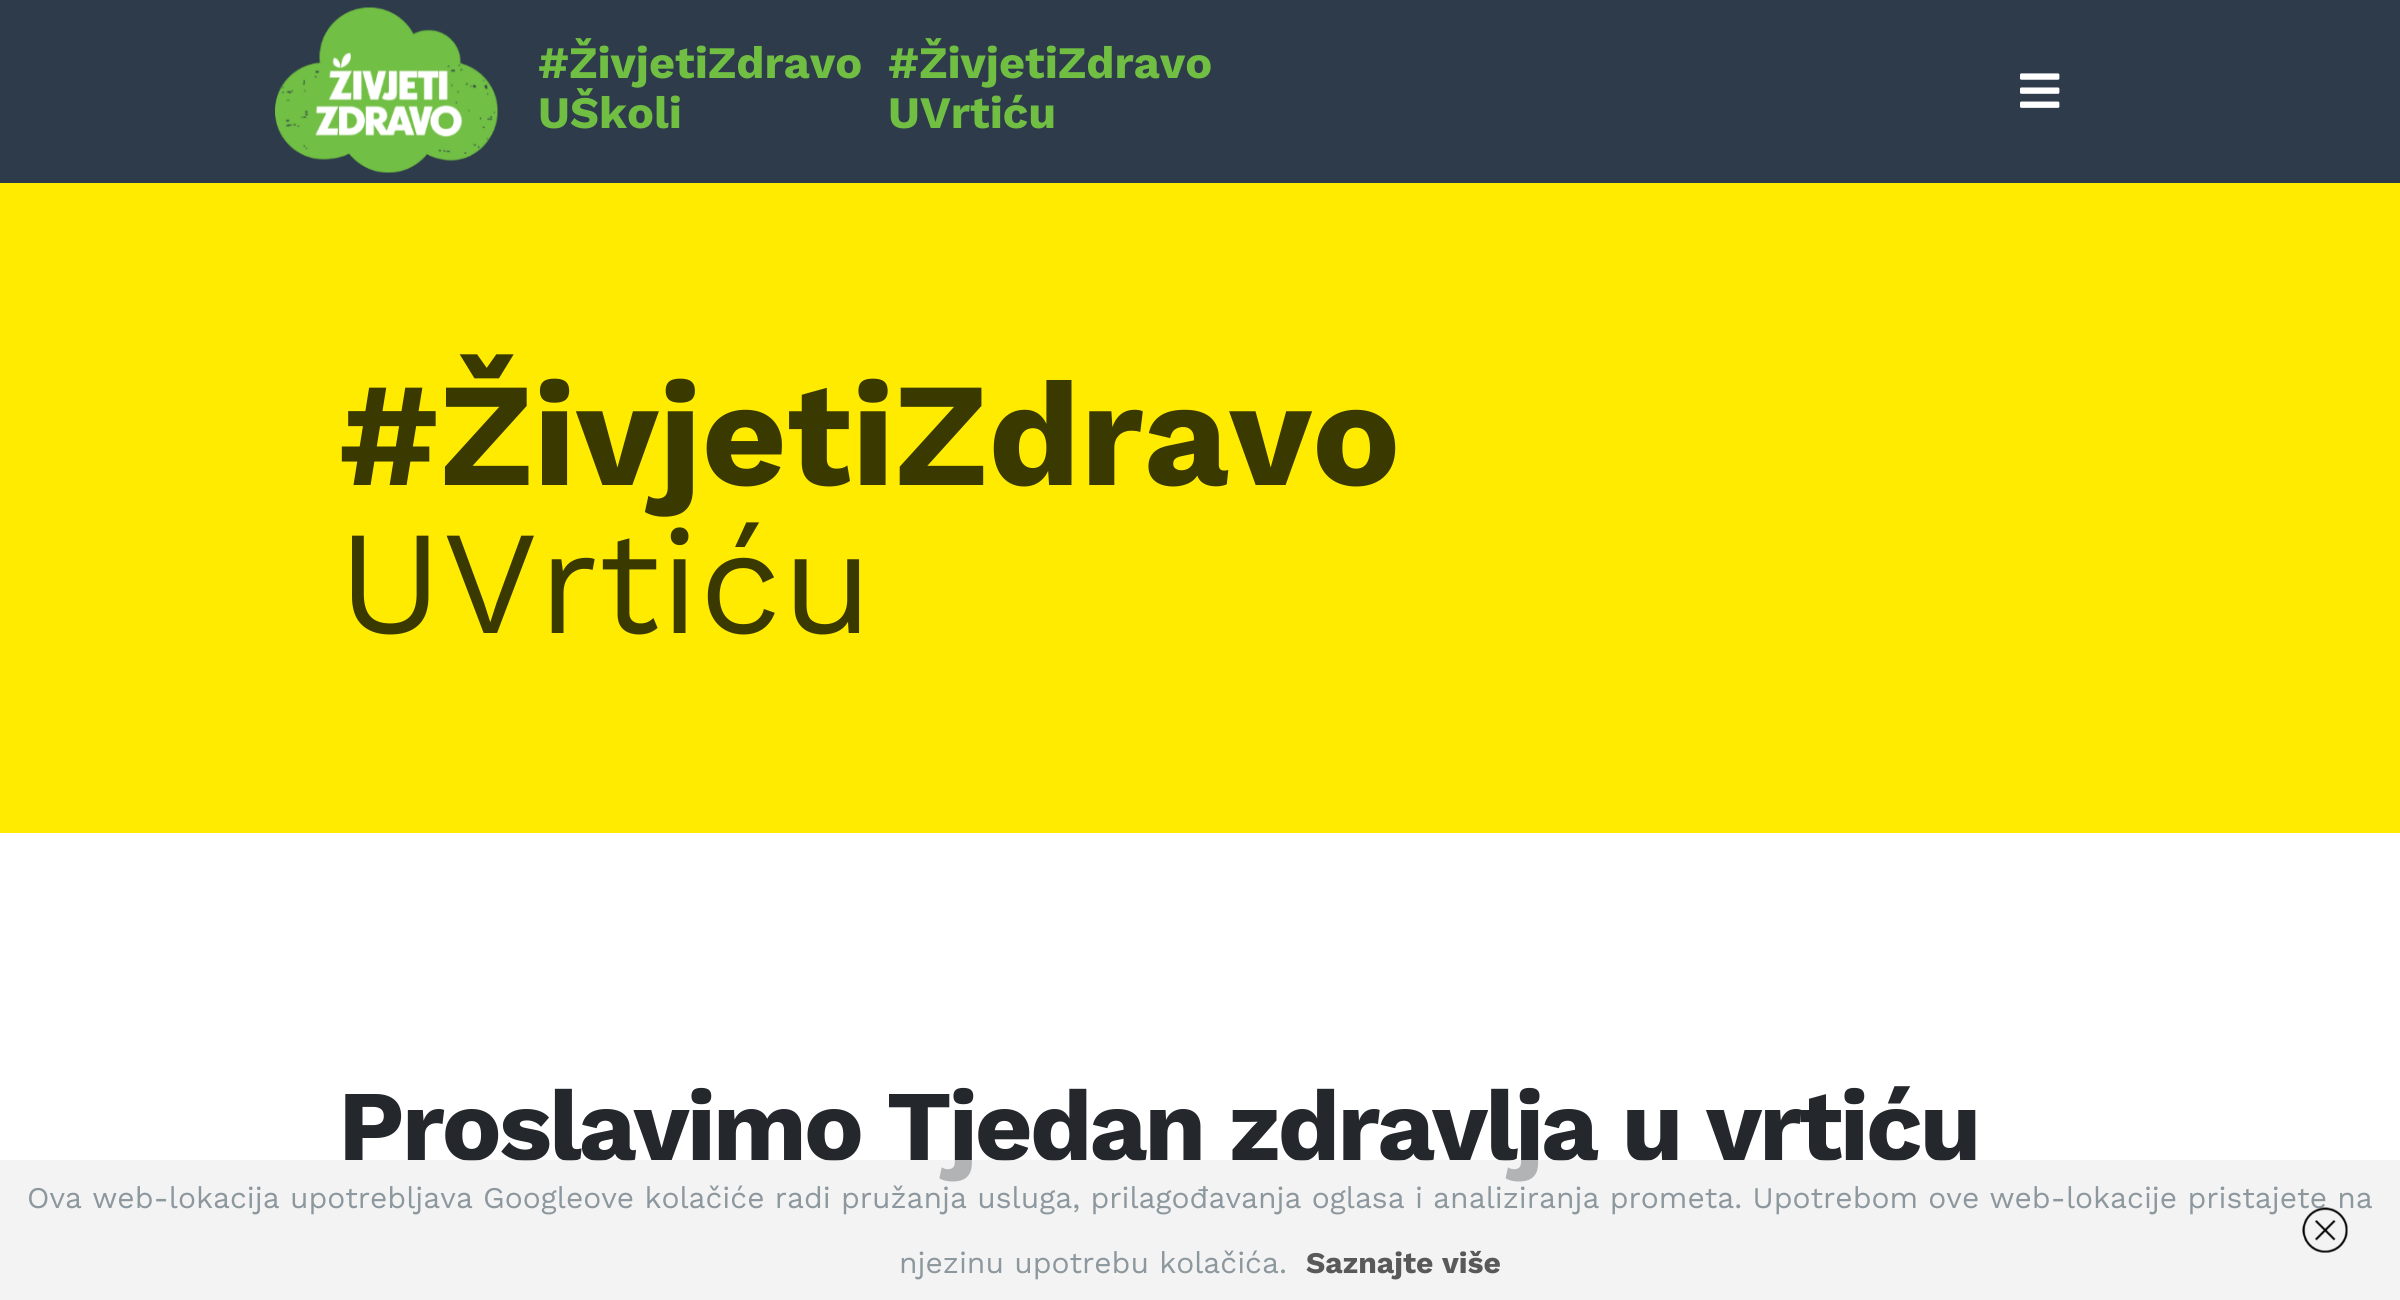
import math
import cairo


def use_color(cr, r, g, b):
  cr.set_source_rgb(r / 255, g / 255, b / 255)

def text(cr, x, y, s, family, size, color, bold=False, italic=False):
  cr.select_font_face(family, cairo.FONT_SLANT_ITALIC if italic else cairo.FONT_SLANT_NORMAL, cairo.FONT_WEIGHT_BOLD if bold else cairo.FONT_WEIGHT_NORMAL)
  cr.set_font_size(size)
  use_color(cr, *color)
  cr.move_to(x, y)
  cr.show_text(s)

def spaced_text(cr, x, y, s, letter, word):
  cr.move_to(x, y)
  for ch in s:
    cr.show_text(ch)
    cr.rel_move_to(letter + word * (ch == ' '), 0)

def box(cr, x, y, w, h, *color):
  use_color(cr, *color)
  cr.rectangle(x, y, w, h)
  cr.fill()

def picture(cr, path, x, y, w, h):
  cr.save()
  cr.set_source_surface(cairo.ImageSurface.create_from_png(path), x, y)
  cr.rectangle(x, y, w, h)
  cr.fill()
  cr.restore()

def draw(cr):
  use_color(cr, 255, 255, 255)
  cr.paint()
  box(cr, 0, 0, 2400, 183, 46, 59, 75)
  picture(cr, "img_01.png", 275, 7, 223, 166)
  picture(cr, "img_02.png", 2020, 73, 40, 35)
  box(cr, 0, 183, 2400, 650, 255, 235, 0)
  text(cr, 538, 78, "#ŽivjetiZdravo", "Work Sans", 45, (112, 191, 67), bold=True)
  text(cr, 538, 128, "UŠkoli", "Work Sans", 45, (112, 191, 67), bold=True)
  text(cr, 888, 78, "#ŽivjetiZdravo", "Work Sans", 45, (112, 191, 67), bold=True)
  text(cr, 888, 128, "UVrtiću", "Work Sans", 45, (112, 191, 67), bold=True)
  text(cr, 338, 485, "#ŽivjetiZdravo", "Work Sans", 147.5, (58, 58, 0), bold=True)
  text(cr, 338, 633, "UVrtiću", "Work Sans", 147.5, (58, 58, 0))
  cr.select_font_face("Work Sans", cairo.FONT_SLANT_NORMAL, cairo.FONT_WEIGHT_BOLD)
  cr.set_font_size(100)
  use_color(cr, 36, 39, 44)
  spaced_text(cr, 338, 1160, "Proslavimo Tjedan zdravlja u vrtiću", -3, 0)
  cr.set_source_rgba(0.933, 0.933, 0.933, 0.7)
  cr.rectangle(0, 1160, 2400, 140)
  cr.fill()
  text(cr, 27, 1208, "Ova web-lokacija upotrebljava Googleove kolačiće radi pružanja usluga, prilagođavanja oglasa i analiziranja prometa. Upotrebom ove web-lokacije pristajete na", "Work Sans", 30, (140, 151, 158))
  text(cr, 899, 1273, "njezinu upotrebu kolačića.", "Work Sans", 30, (140, 151, 158))
  text(cr, 1306, 1273, "Saznajte više", "Work Sans", 30, (89, 89, 89), bold=True)
  picture(cr, "img_03.png", 2302, 1207, 46, 46)


surface = cairo.ImageSurface(cairo.FORMAT_RGB24, 2400, 1300)
cr = cairo.Context(surface)
options = cairo.FontOptions()
options.set_hint_metrics(cairo.HINT_METRICS_OFF)
options.set_hint_style(cairo.HINT_STYLE_NONE)
cr.set_font_options(options)
cr.set_miter_limit(4)
draw(cr)
surface.write_to_png("out.png")
